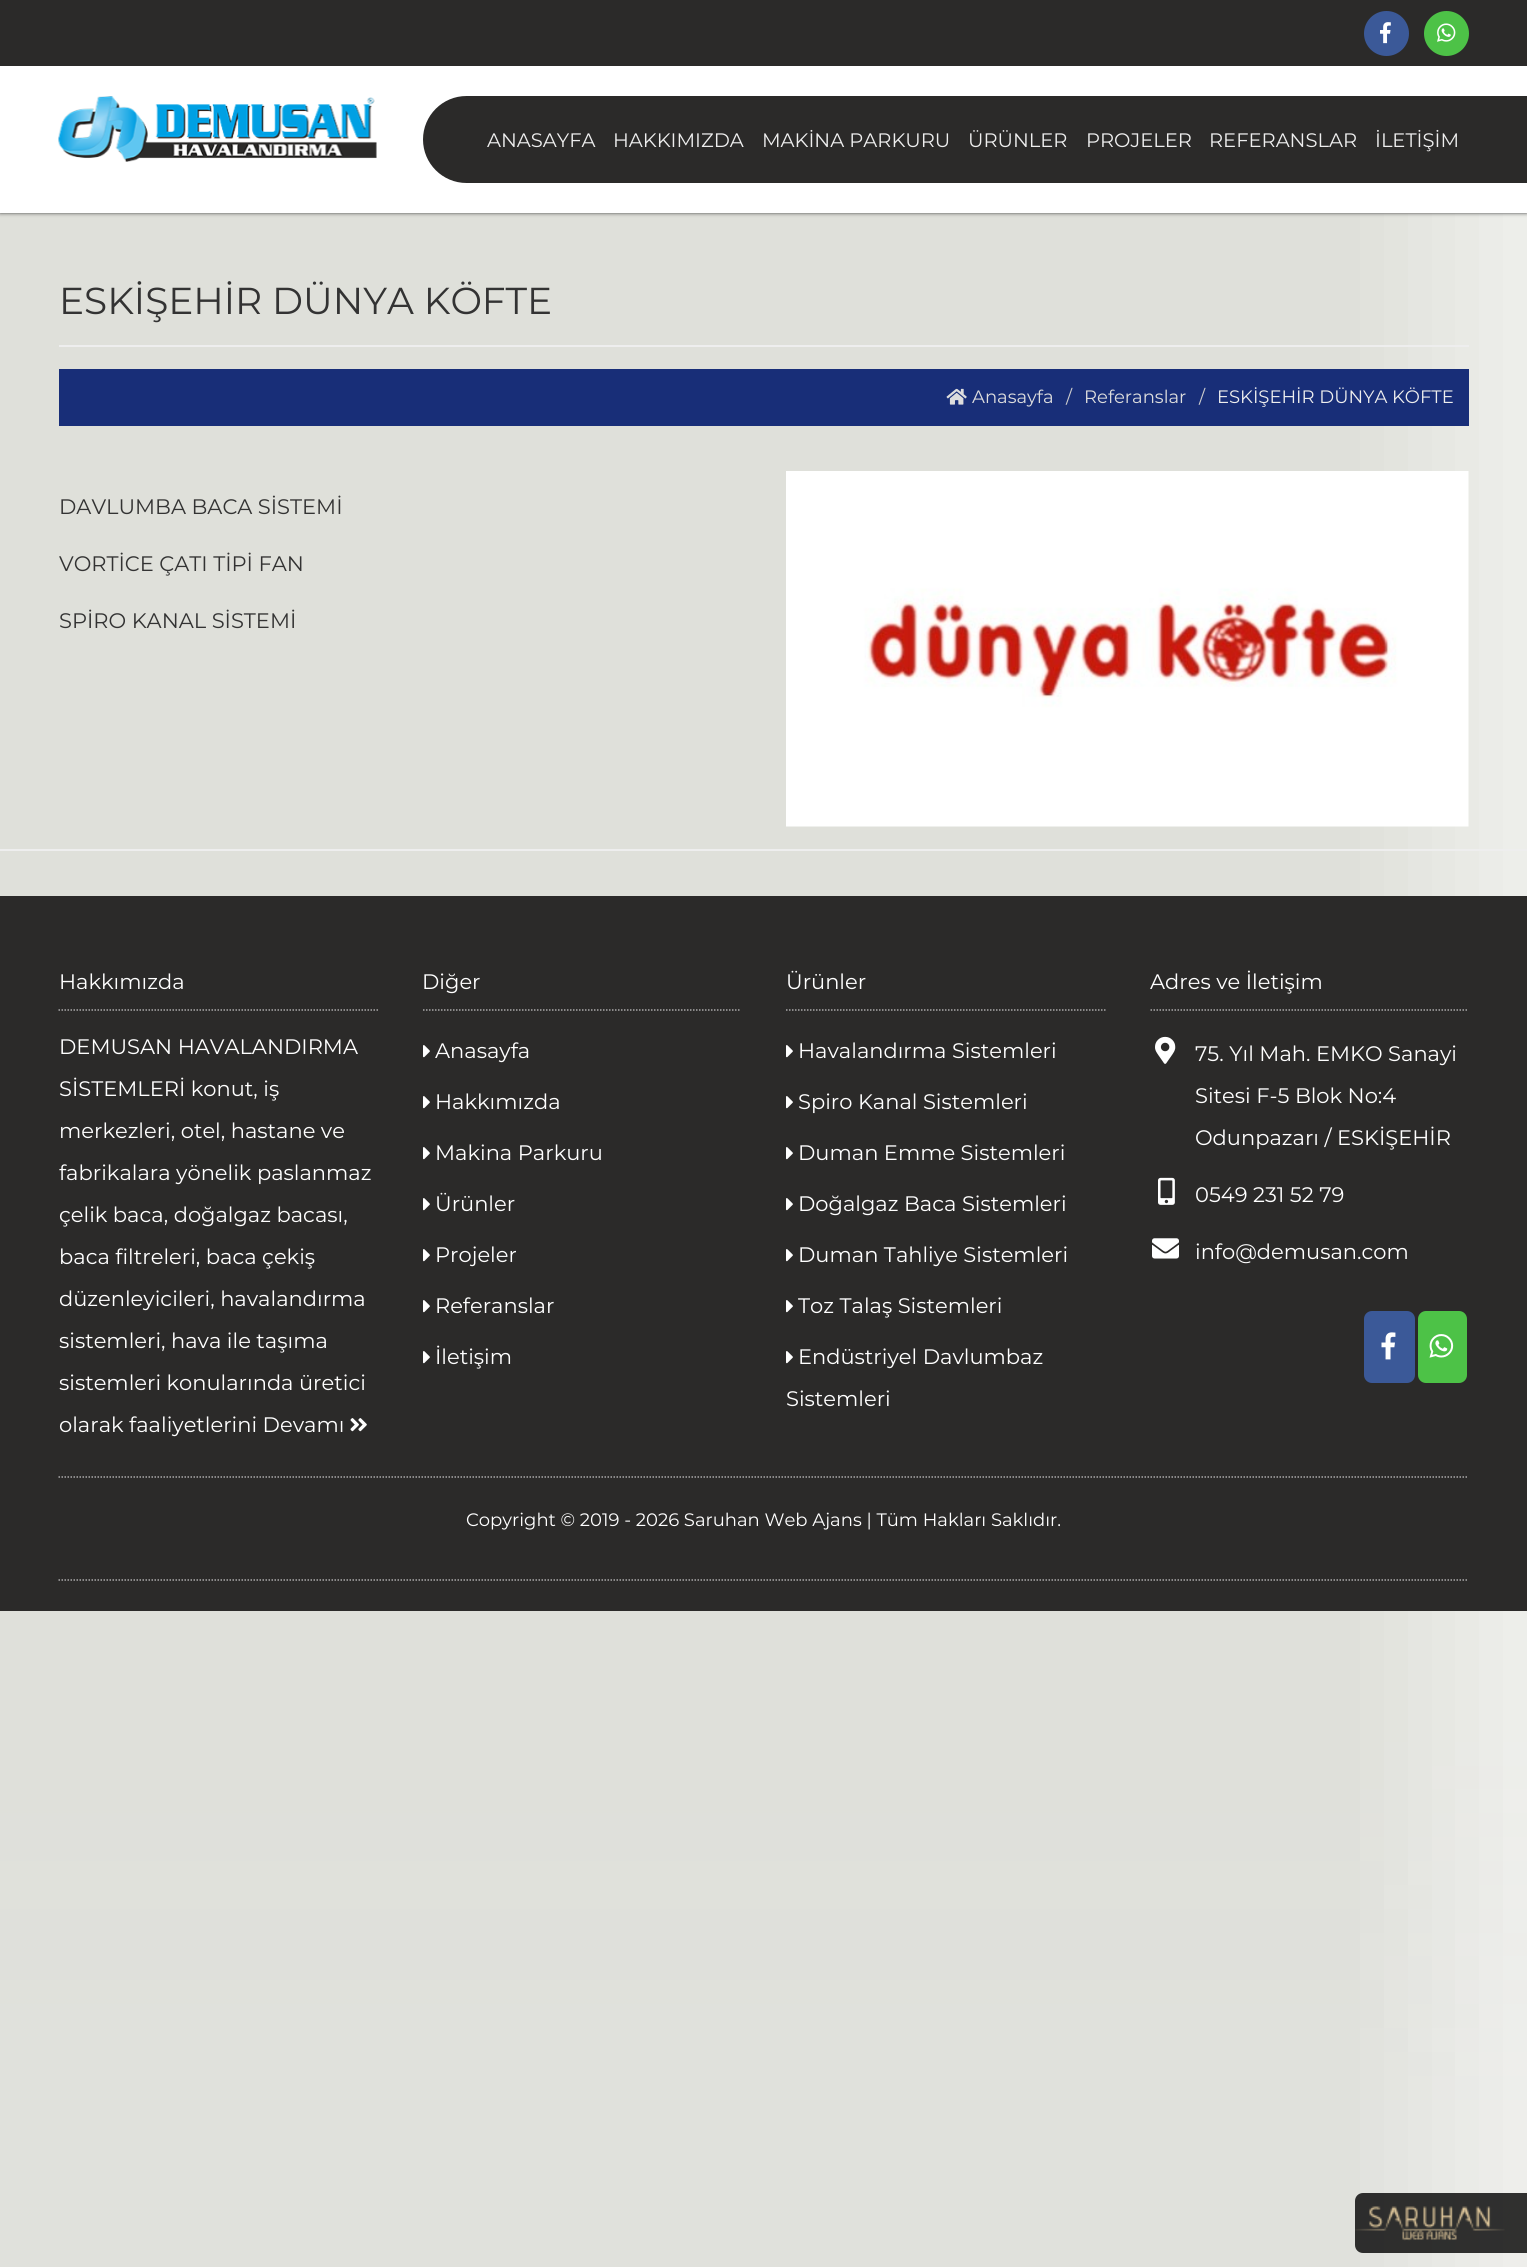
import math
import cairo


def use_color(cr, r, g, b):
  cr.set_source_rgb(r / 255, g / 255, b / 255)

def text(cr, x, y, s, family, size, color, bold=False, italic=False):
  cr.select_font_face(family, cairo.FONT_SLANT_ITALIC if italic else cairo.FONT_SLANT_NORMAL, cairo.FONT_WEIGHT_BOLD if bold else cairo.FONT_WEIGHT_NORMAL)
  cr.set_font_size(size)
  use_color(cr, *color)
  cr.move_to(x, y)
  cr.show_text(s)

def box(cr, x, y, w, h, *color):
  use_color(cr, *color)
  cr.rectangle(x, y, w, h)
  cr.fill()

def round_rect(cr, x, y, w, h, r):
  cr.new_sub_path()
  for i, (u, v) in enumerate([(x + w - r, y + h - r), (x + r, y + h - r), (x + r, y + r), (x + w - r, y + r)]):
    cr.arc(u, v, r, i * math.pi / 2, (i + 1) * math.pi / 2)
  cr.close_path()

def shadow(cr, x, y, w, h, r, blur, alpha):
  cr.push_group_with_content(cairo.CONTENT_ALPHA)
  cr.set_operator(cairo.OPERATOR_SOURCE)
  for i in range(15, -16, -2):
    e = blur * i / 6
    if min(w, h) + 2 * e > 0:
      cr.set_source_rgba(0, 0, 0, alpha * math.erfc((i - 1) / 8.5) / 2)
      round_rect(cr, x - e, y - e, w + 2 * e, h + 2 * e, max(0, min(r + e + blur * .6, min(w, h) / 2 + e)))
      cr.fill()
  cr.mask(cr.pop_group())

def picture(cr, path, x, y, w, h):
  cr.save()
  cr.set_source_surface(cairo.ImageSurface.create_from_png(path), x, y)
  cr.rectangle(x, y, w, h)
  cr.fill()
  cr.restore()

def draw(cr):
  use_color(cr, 255, 255, 255)
  cr.paint()
  picture(cr, "img_01.png", 0, 213, 1527, 2054)
  use_color(cr, 68, 68, 68)
  shadow(cr, 0, 0, 1527, 213, 0, 2, 1)
  box(cr, 0, 0, 1527, 66, 43, 42, 41)
  use_color(cr, 59, 89, 152)
  cr.arc(1386.5, 33.5, 22.5, 0, 2 * math.pi)
  cr.fill()
  picture(cr, "img_02.png", 1380, 22, 11, 22)
  use_color(cr, 77, 194, 71)
  cr.arc(1446.5, 33.5, 22.5, 0, 2 * math.pi)
  cr.fill()
  picture(cr, "img_03.png", 1437, 23, 19, 19)
  box(cr, 0, 66, 1527, 147, 255, 255, 255)
  picture(cr, "img_04.png", 58, 96, 319, 66)
  use_color(cr, 43, 42, 41)
  cr.new_path()
  cr.move_to(466.5, 96)
  cr.line_to(1527, 96)
  cr.line_to(1527, 183)
  cr.line_to(466.5, 183)
  cr.curve_to(442.5, 183, 423, 163.5, 423, 139.5)
  cr.curve_to(423, 115.5, 442.5, 96, 466.5, 96)
  cr.close_path()
  cr.fill()
  box(cr, 59, 345, 1410, 2, 238, 238, 238)
  box(cr, 59, 369, 1410, 57, 24, 46, 120)
  picture(cr, "img_05.png", 946, 388, 21, 17)
  picture(cr, "img_06.png", 786, 471, 683, 356)
  box(cr, 0, 849, 1527, 2, 238, 238, 238)
  box(cr, 0, 896, 1527, 715, 43, 42, 41)
  cr.new_path()
  cr.move_to(58.5, 1010)
  cr.line_to(378, 1010)
  use_color(cr, 170, 170, 170)
  cr.set_line_width(1.5)
  cr.set_dash([1.5, 1.5])
  cr.stroke()
  picture(cr, "img_07.png", 350, 1418, 17, 14)
  cr.new_path()
  cr.move_to(423, 1010)
  cr.line_to(741, 1010)
  cr.stroke()
  picture(cr, "img_08.png", 423, 1045, 7, 13)
  picture(cr, "img_08.png", 423, 1096, 7, 13)
  picture(cr, "img_08.png", 423, 1147, 7, 13)
  picture(cr, "img_08.png", 423, 1198, 7, 13)
  picture(cr, "img_08.png", 423, 1249, 7, 13)
  picture(cr, "img_08.png", 423, 1300, 7, 13)
  picture(cr, "img_08.png", 423, 1351, 7, 13)
  cr.new_path()
  cr.move_to(786, 1010)
  cr.line_to(1105.5, 1010)
  cr.stroke()
  picture(cr, "img_08.png", 786, 1045, 7, 13)
  picture(cr, "img_08.png", 786, 1096, 7, 13)
  picture(cr, "img_08.png", 786, 1147, 7, 13)
  picture(cr, "img_08.png", 786, 1198, 7, 13)
  picture(cr, "img_08.png", 786, 1249, 7, 13)
  picture(cr, "img_08.png", 786, 1300, 7, 13)
  picture(cr, "img_08.png", 786, 1351, 7, 13)
  cr.new_path()
  cr.move_to(1150.5, 1010)
  cr.line_to(1468.5, 1010)
  cr.stroke()
  picture(cr, "img_09.png", 1155, 1036, 21, 28)
  picture(cr, "img_10.png", 1158, 1177, 17, 28)
  picture(cr, "img_11.png", 1152, 1238, 27, 21)
  use_color(cr, 59, 89, 152)
  round_rect(cr, 1364, 1311, 51, 72, 8)
  cr.fill()
  picture(cr, "img_12.png", 1381, 1332, 15, 28)
  use_color(cr, 77, 194, 71)
  round_rect(cr, 1418, 1311, 49, 72, 8)
  cr.fill()
  picture(cr, "img_13.png", 1429, 1334, 25, 24)
  cr.new_path()
  cr.move_to(58.5, 1477)
  cr.line_to(1468.5, 1477)
  use_color(cr, 170, 170, 170)
  cr.stroke()
  cr.new_path()
  cr.move_to(58.5, 1580)
  cr.line_to(1468.5, 1580)
  cr.stroke()
  cr.set_source_rgba(0, 0, 0, 0.8)
  cr.new_path()
  cr.move_to(1363, 2193)
  cr.line_to(1527, 2193)
  cr.line_to(1527, 2253)
  cr.line_to(1363, 2253)
  cr.curve_to(1358.5, 2253, 1355, 2249.5, 1355, 2245)
  cr.line_to(1355, 2201)
  cr.curve_to(1355, 2196.5, 1358.5, 2193, 1363, 2193)
  cr.close_path()
  cr.fill()
  picture(cr, "img_14.png", 1355, 2206, 150, 35)
  text(cr, 487, 147, "ANASAYFA", "Montserrat", 19.5, (238, 238, 238))
  text(cr, 613, 147, "HAKKIMIZDA", "Montserrat", 19.5, (238, 238, 238))
  text(cr, 762, 147, "MAKİNA PARKURU", "Montserrat", 19.5, (238, 238, 238))
  text(cr, 968, 147, "ÜRÜNLER", "Montserrat", 19.5, (238, 238, 238))
  text(cr, 1086, 147, "PROJELER", "Montserrat", 19.5, (238, 238, 238))
  text(cr, 1209, 147, "REFERANSLAR", "Montserrat", 19.5, (238, 238, 238))
  text(cr, 1375, 147, "İLETİŞİM", "Montserrat", 19.5, (238, 238, 238))
  text(cr, 59, 314, "ESKİŞEHİR DÜNYA KÖFTE", "Montserrat", 37.5, (51, 51, 51))
  text(cr, 972, 403, "Anasayfa", "Montserrat", 18, (221, 221, 221))
  text(cr, 1066, 403, "/", "Montserrat", 18, (204, 204, 204))
  text(cr, 1084, 403, "Referanslar", "Montserrat", 18, (221, 221, 221))
  text(cr, 1199, 403, "/", "Montserrat", 18, (204, 204, 204))
  text(cr, 1217, 403, "ESKİŞEHİR DÜNYA KÖFTE", "Montserrat", 18, (238, 238, 238))
  text(cr, 59, 514, "DAVLUMBA BACA SİSTEMİ", "Montserrat", 21, (51, 51, 51))
  text(cr, 59, 571, "VORTİCE ÇATI TİPİ FAN", "Montserrat", 21, (51, 51, 51))
  text(cr, 59, 628, "SPİRO KANAL SİSTEMİ", "Montserrat", 21, (51, 51, 51))
  text(cr, 59, 989, "Hakkımızda", "Montserrat", 21, (255, 255, 255))
  text(cr, 59, 1054, "DEMUSAN HAVALANDIRMA", "Montserrat", 21, (255, 255, 255))
  text(cr, 59, 1096, "SİSTEMLERİ konut, iş", "Montserrat", 21, (255, 255, 255))
  text(cr, 59, 1138, "merkezleri, otel, hastane ve", "Montserrat", 21, (255, 255, 255))
  text(cr, 59, 1180, "fabrikalara yönelik paslanmaz", "Montserrat", 21, (255, 255, 255))
  text(cr, 59, 1222, "çelik baca, doğalgaz bacası,", "Montserrat", 21, (255, 255, 255))
  text(cr, 59, 1264, "baca filtreleri, baca çekiş", "Montserrat", 21, (255, 255, 255))
  text(cr, 59, 1306, "düzenleyicileri, havalandırma", "Montserrat", 21, (255, 255, 255))
  text(cr, 59, 1348, "sistemleri, hava ile taşıma", "Montserrat", 21, (255, 255, 255))
  text(cr, 59, 1390, "sistemleri konularında üretici", "Montserrat", 21, (255, 255, 255))
  text(cr, 59, 1432, "olarak faaliyetlerini Devamı", "Montserrat", 21, (255, 255, 255))
  text(cr, 422, 989, "Diğer", "Montserrat", 21, (255, 255, 255))
  text(cr, 435, 1058, "Anasayfa", "Montserrat", 21, (255, 255, 255))
  text(cr, 435, 1109, "Hakkımızda", "Montserrat", 21, (255, 255, 255))
  text(cr, 435, 1160, "Makina Parkuru", "Montserrat", 21, (255, 255, 255))
  text(cr, 435, 1211, "Ürünler", "Montserrat", 21, (255, 255, 255))
  text(cr, 435, 1262, "Projeler", "Montserrat", 21, (255, 255, 255))
  text(cr, 435, 1313, "Referanslar", "Montserrat", 21, (255, 255, 255))
  text(cr, 435, 1364, "İletişim", "Montserrat", 21, (255, 255, 255))
  text(cr, 786, 989, "Ürünler", "Montserrat", 21, (255, 255, 255))
  text(cr, 798, 1058, "Havalandırma Sistemleri", "Montserrat", 21, (255, 255, 255))
  text(cr, 798, 1109, "Spiro Kanal Sistemleri", "Montserrat", 21, (255, 255, 255))
  text(cr, 798, 1160, "Duman Emme Sistemleri", "Montserrat", 21, (255, 255, 255))
  text(cr, 798, 1211, "Doğalgaz Baca Sistemleri", "Montserrat", 21, (255, 255, 255))
  text(cr, 798, 1262, "Duman Tahliye Sistemleri", "Montserrat", 21, (255, 255, 255))
  text(cr, 798, 1313, "Toz Talaş Sistemleri", "Montserrat", 21, (255, 255, 255))
  text(cr, 798, 1364, "Endüstriyel Davlumbaz", "Montserrat", 21, (255, 255, 255))
  text(cr, 786, 1406, "Sistemleri", "Montserrat", 21, (255, 255, 255))
  text(cr, 1150, 989, "Adres ve İletişim", "Montserrat", 21, (255, 255, 255))
  text(cr, 1195, 1061, "75. Yıl Mah. EMKO Sanayi", "Montserrat", 21, (255, 255, 255))
  text(cr, 1195, 1103, "Sitesi F-5 Blok No:4", "Montserrat", 21, (255, 255, 255))
  text(cr, 1195, 1145, "Odunpazarı / ESKİŞEHİR", "Montserrat", 21, (255, 255, 255))
  text(cr, 1195, 1202, "0549 231 52 79", "Montserrat", 21, (255, 255, 255))
  text(cr, 1195, 1259, "info@demusan.com", "Montserrat", 21, (255, 255, 255))
  text(cr, 466, 1526, "Copyright © 2019 - 2026 Saruhan Web Ajans | Tüm Hakları Saklıdır.", "Montserrat", 18, (255, 255, 255))


surface = cairo.ImageSurface(cairo.FORMAT_RGB24, 1527, 2267)
cr = cairo.Context(surface)
options = cairo.FontOptions()
options.set_hint_metrics(cairo.HINT_METRICS_OFF)
options.set_hint_style(cairo.HINT_STYLE_NONE)
cr.set_font_options(options)
cr.set_miter_limit(4)
draw(cr)
surface.write_to_png("out.png")
